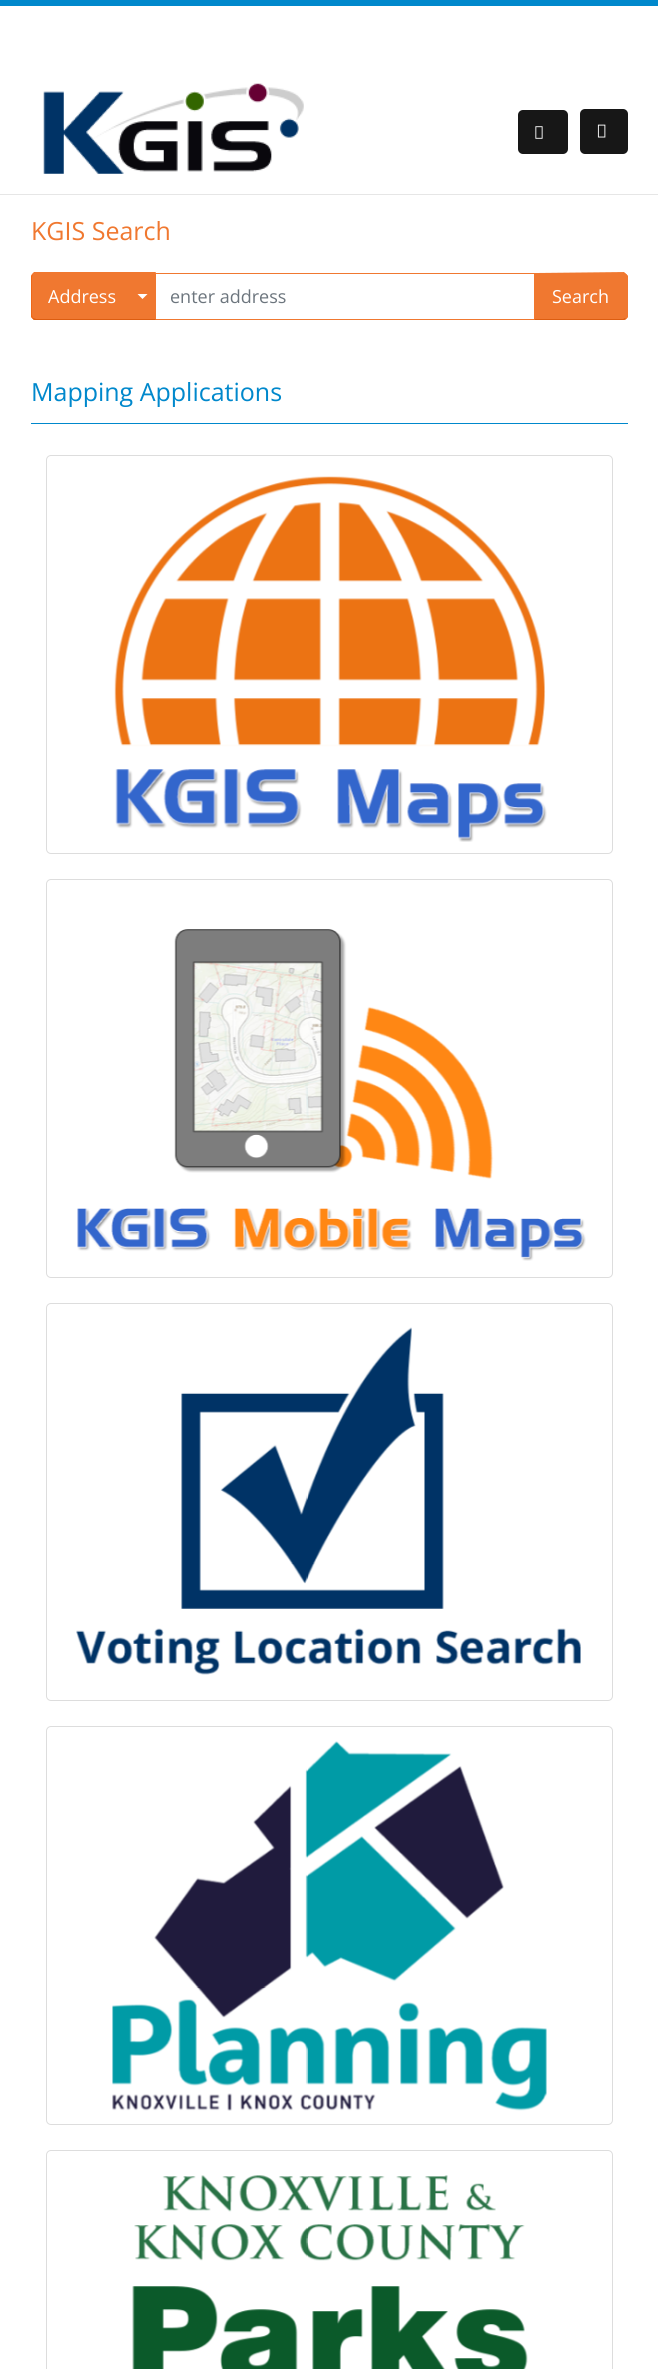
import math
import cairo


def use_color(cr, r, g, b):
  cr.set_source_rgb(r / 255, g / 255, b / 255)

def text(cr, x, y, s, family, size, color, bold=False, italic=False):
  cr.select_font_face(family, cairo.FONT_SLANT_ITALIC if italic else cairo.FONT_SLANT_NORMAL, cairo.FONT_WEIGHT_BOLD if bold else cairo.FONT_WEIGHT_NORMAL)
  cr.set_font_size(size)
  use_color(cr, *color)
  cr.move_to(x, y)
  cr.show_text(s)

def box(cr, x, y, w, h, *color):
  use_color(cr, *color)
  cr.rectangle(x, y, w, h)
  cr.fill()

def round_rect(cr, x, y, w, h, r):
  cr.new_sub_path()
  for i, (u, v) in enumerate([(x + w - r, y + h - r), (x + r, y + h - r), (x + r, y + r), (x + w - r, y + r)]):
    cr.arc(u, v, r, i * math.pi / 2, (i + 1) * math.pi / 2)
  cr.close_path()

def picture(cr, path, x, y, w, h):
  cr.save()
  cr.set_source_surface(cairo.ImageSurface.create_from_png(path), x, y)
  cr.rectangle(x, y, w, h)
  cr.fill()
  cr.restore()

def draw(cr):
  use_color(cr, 255, 255, 255)
  cr.paint()
  box(cr, 0, 0, 658, 6, 0, 136, 204)
  box(cr, 0, 194, 658, 1, 230, 230, 230)
  picture(cr, "img_01.png", 43, 83, 261, 91)
  use_color(cr, 23, 23, 23)
  round_rect(cr, 518, 110, 50, 44, 5)
  cr.fill()
  picture(cr, "img_02.png", 535, 126, 8, 13)
  round_rect(cr, 580, 109, 48, 45, 5)
  cr.fill()
  picture(cr, "img_03.png", 597, 124, 9, 14)
  cr.rectangle(154.5, 273.5, 380, 46)
  use_color(cr, 240, 120, 48)
  cr.set_line_width(1)
  cr.stroke()
  cr.new_path()
  cr.move_to(36, 273)
  cr.line_to(156, 273)
  cr.line_to(156, 320)
  cr.line_to(36, 320)
  cr.curve_to(33, 320, 31, 318, 31, 315)
  cr.line_to(31, 278)
  cr.curve_to(31, 275, 33, 273, 36, 273)
  cr.close_path()
  cr.fill()
  cr.new_path()
  cr.move_to(36, 274)
  cr.line_to(33, 275)
  cr.line_to(32, 274)
  cr.line_to(34, 272)
  cr.line_to(156, 272)
  cr.line_to(155, 274)
  cr.close_path()
  cr.fill()
  use_color(cr, 221, 93, 16)
  cr.new_path()
  cr.move_to(36, 320)
  cr.line_to(156, 320)
  cr.line_to(155, 319)
  cr.line_to(36, 319)
  cr.line_to(33, 318)
  cr.line_to(33, 319)
  cr.curve_to(33, 320, 35, 320, 36, 320)
  cr.close_path()
  cr.fill()
  use_color(cr, 238, 104, 24)
  cr.new_path()
  cr.move_to(31, 276)
  cr.line_to(32, 274)
  cr.line_to(33, 275)
  cr.curve_to(33, 275, 32, 276, 32, 278)
  cr.line_to(32, 315)
  cr.curve_to(32, 316, 33, 317, 33, 318)
  cr.line_to(33, 319)
  cr.line_to(31, 317)
  cr.close_path()
  cr.fill()
  use_color(cr, 255, 255, 255)
  cr.new_path()
  cr.move_to(137.5, 294)
  cr.line_to(147.5, 294)
  cr.line_to(142.5, 299)
  cr.close_path()
  cr.fill()
  use_color(cr, 240, 120, 48)
  cr.new_path()
  cr.move_to(534, 273)
  cr.line_to(623, 273)
  cr.curve_to(626, 273, 628, 275, 628, 278)
  cr.line_to(628, 315)
  cr.curve_to(628, 318, 626, 320, 623, 320)
  cr.line_to(534, 320)
  cr.close_path()
  cr.fill()
  cr.new_path()
  cr.move_to(534, 273)
  cr.line_to(624, 272)
  cr.line_to(626, 274)
  cr.line_to(625, 275)
  cr.line_to(623, 274)
  cr.line_to(535, 274)
  cr.close_path()
  cr.fill()
  cr.new_path()
  cr.move_to(628, 317)
  cr.line_to(626, 319)
  cr.line_to(625, 318)
  cr.curve_to(627, 316, 627, 276, 625, 275)
  cr.line_to(626, 274)
  cr.line_to(628, 276)
  cr.close_path()
  cr.fill()
  use_color(cr, 221, 93, 16)
  cr.new_path()
  cr.move_to(534, 320)
  cr.line_to(622, 320)
  cr.curve_to(624, 320, 625, 320, 626, 319)
  cr.line_to(625, 318)
  cr.line_to(623, 319)
  cr.line_to(535, 319)
  cr.close_path()
  cr.fill()
  use_color(cr, 240, 120, 48)
  cr.new_path()
  cr.move_to(535, 274)
  cr.line_to(535, 319)
  cr.line_to(534, 320)
  cr.line_to(534, 273)
  cr.close_path()
  cr.fill()
  box(cr, 31, 423, 597, 1, 0, 136, 204)
  round_rect(cr, 46.5, 455.5, 566, 398, 4.5)
  use_color(cr, 221, 221, 221)
  cr.stroke()
  picture(cr, "img_04.png", 114, 476, 433, 366)
  round_rect(cr, 46.5, 879.5, 566, 398, 4.5)
  cr.stroke()
  picture(cr, "img_05.png", 77, 929, 509, 332)
  round_rect(cr, 46.5, 1303.5, 566, 397, 4.5)
  cr.stroke()
  picture(cr, "img_06.png", 76, 1327, 505, 348)
  round_rect(cr, 46.5, 1726.5, 566, 398, 4.5)
  cr.stroke()
  picture(cr, "img_07.png", 112, 1741, 435, 370)
  round_rect(cr, 46.5, 2150.5, 566, 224, 4.5)
  cr.stroke()
  picture(cr, "img_08.png", 132, 2175, 396, 194)
  text(cr, 31, 240, "KGIS Search", "Open Sans", 25, (240, 120, 48))
  text(cr, 48, 303, "Address", "Open Sans", 18, (255, 255, 255))
  text(cr, 170, 303, "enter address", "Open Sans", 18, (108, 117, 125))
  text(cr, 552, 303, "Search", "Open Sans", 18, (255, 255, 255))
  text(cr, 31, 401, "Mapping Applications", "Open Sans", 25, (0, 136, 204))


surface = cairo.ImageSurface(cairo.FORMAT_RGB24, 658, 2369)
cr = cairo.Context(surface)
options = cairo.FontOptions()
options.set_hint_metrics(cairo.HINT_METRICS_OFF)
options.set_hint_style(cairo.HINT_STYLE_NONE)
cr.set_font_options(options)
cr.set_miter_limit(4)
draw(cr)
surface.write_to_png("out.png")
